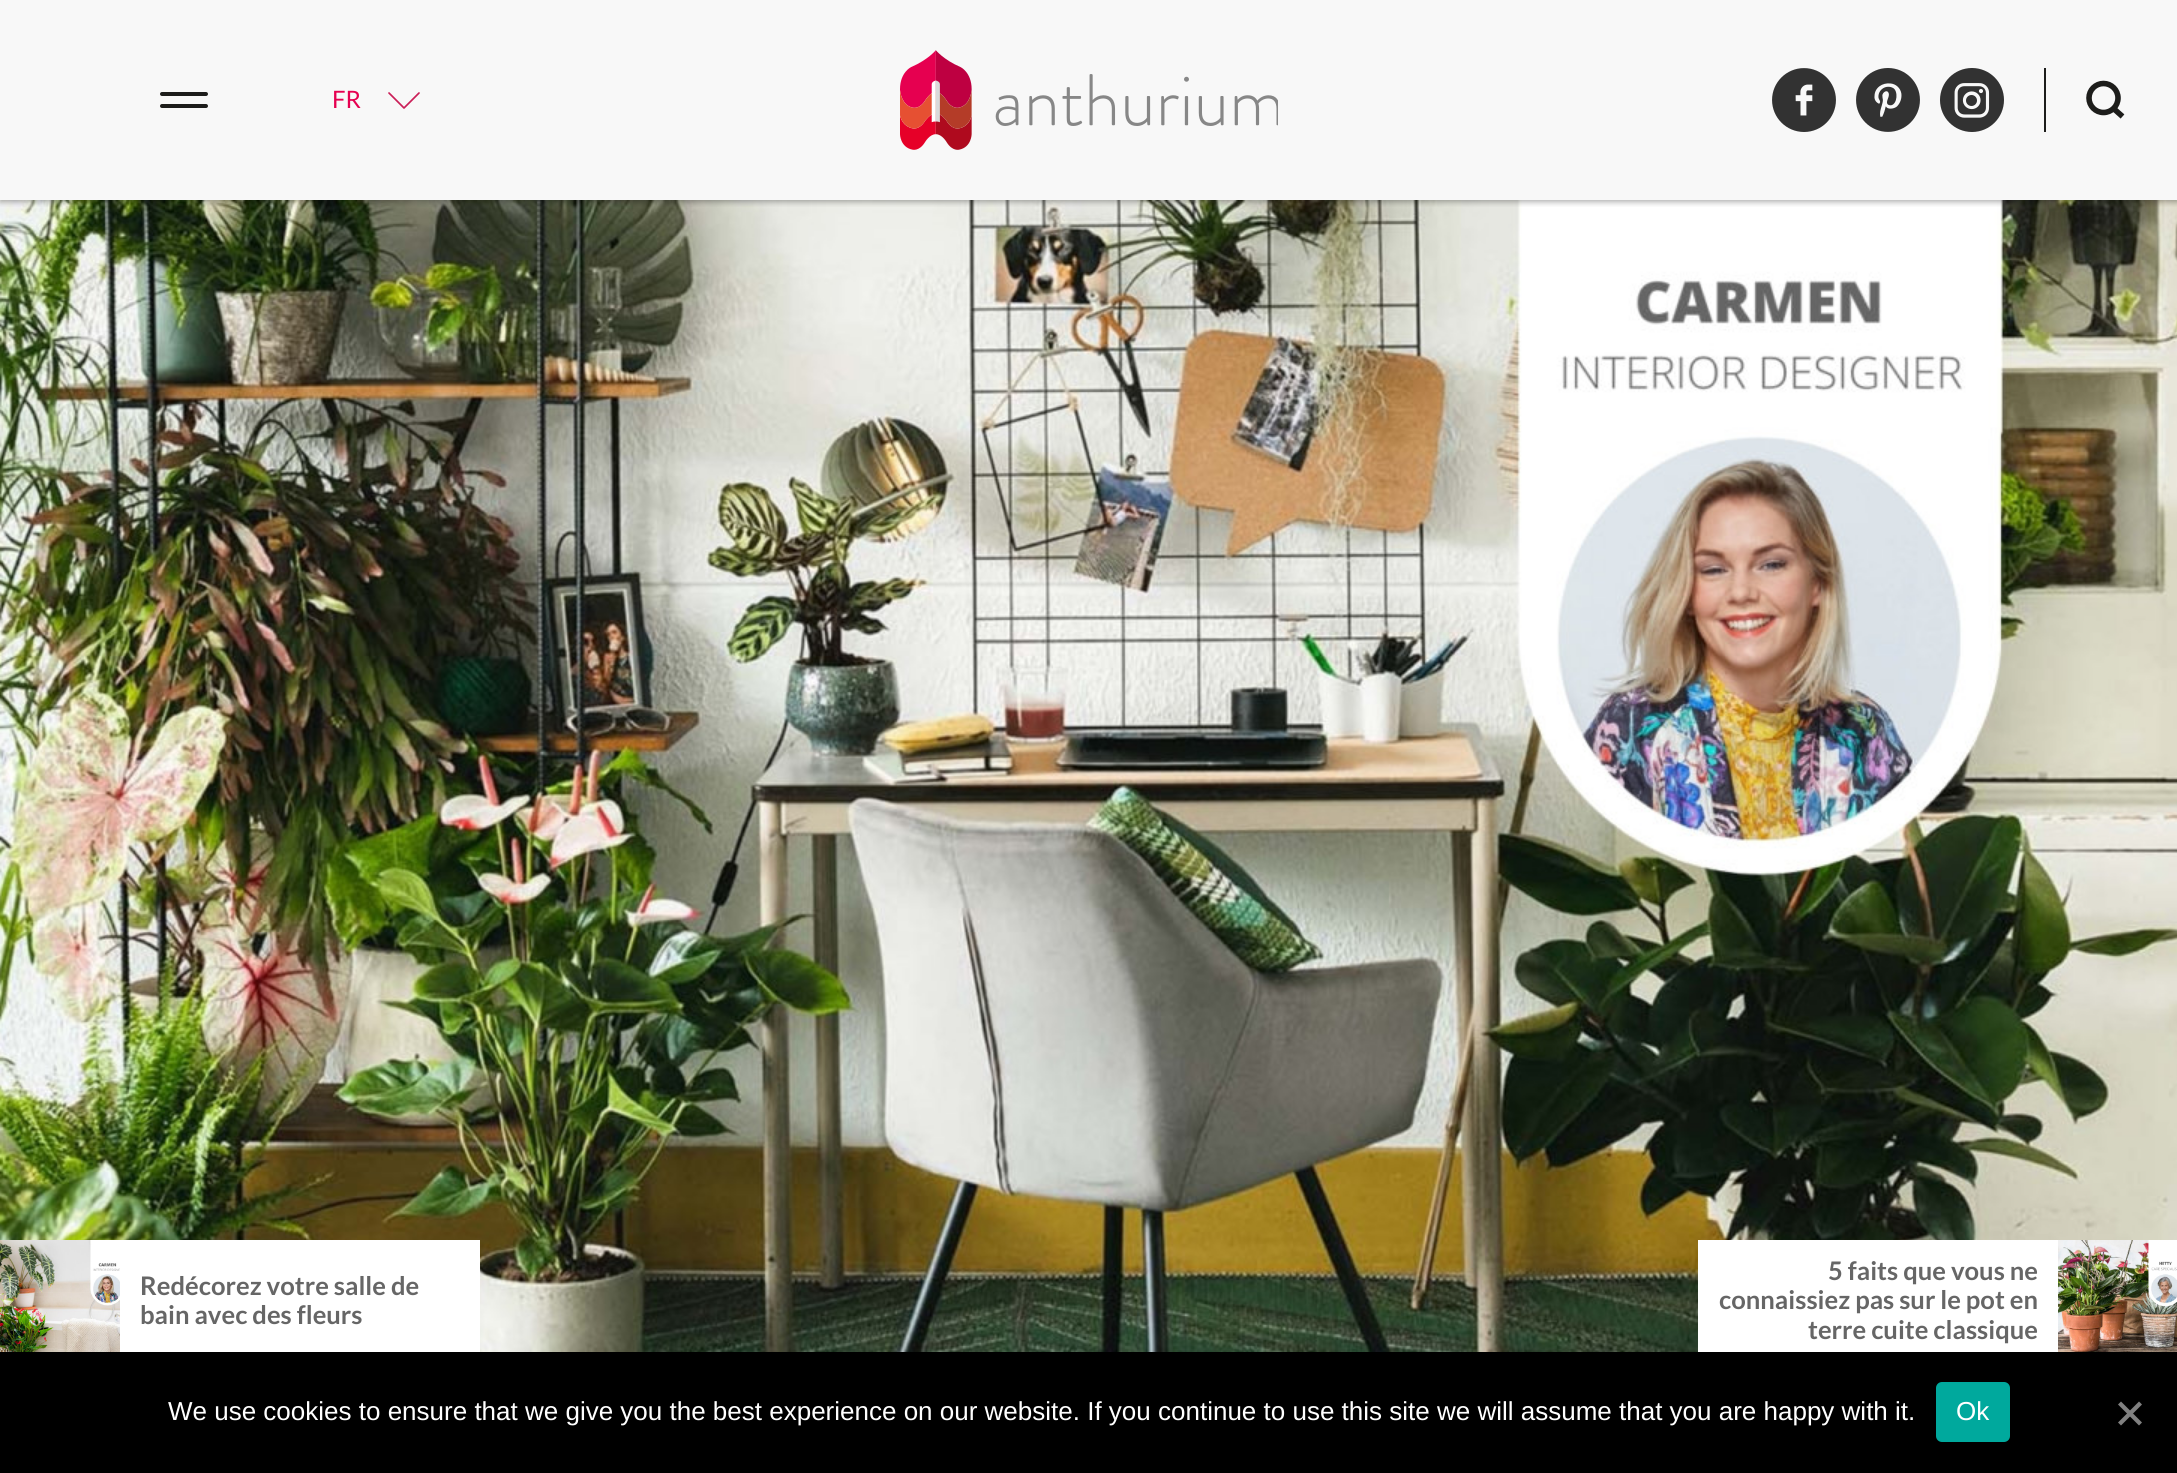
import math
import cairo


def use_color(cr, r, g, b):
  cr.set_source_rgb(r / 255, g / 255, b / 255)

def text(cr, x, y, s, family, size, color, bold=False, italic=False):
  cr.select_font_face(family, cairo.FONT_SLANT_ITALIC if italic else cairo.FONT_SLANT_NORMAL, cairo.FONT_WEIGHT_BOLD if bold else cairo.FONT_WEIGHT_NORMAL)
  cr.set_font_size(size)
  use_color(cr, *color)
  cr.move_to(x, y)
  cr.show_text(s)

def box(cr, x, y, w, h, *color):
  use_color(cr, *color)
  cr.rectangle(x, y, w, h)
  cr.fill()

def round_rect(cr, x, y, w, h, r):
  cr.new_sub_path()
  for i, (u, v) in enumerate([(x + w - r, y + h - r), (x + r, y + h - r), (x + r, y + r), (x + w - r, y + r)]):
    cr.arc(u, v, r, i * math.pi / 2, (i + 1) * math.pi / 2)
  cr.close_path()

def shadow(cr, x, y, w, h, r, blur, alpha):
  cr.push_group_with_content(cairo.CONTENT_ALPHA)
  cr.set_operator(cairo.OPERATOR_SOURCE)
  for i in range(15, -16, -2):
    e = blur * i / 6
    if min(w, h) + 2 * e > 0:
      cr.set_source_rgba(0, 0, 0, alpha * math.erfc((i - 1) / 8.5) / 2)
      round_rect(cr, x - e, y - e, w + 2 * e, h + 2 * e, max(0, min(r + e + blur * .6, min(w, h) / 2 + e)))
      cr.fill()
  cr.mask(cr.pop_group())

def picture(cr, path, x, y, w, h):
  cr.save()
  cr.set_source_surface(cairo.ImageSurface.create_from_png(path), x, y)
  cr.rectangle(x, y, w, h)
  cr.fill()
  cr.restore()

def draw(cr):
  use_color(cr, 248, 248, 248)
  cr.paint()
  picture(cr, "img_05.png", 0, 200, 2177, 1152)
  cr.save()
  cr.rectangle(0, 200, 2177, 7)
  cr.clip()
  use_color(cr, 0, 0, 0)
  shadow(cr, 0, 2, 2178, 200, 0, 3, 0.32)
  cr.restore()
  use_color(cr, 29, 29, 27)
  round_rect(cr, 160, 92, 48, 4, 2)
  cr.fill()
  round_rect(cr, 160, 104, 48, 4, 2)
  cr.fill()
  cr.new_path()
  cr.move_to(404, 108)
  cr.line_to(389, 93)
  cr.move_to(419, 93)
  cr.line_to(404, 108)
  use_color(cr, 202, 31, 88)
  cr.set_line_width(1.7)
  cr.set_line_cap(cairo.LINE_CAP_ROUND)
  cr.set_line_join(cairo.LINE_JOIN_ROUND)
  cr.stroke()
  picture(cr, "img_01.png", 900, 50, 378, 100)
  picture(cr, "img_02.png", 1772, 68, 64, 64)
  picture(cr, "img_03.png", 1856, 68, 64, 64)
  picture(cr, "img_04.png", 1940, 68, 64, 64)
  box(cr, 2044, 68, 2, 64, 29, 29, 27)
  cr.arc(2103.5, 98, 14.5, 0, 2 * math.pi)
  cr.set_line_width(5.6)
  cr.set_line_cap(cairo.LINE_CAP_BUTT)
  cr.set_line_join(cairo.LINE_JOIN_MITER)
  cr.stroke()
  cr.new_path()
  cr.move_to(2122.5, 116.5)
  cr.line_to(2113.5, 108.5)
  cr.stroke()
  box(cr, 120, 1240, 360, 112, 255, 255, 255)
  picture(cr, "img_06.png", 0, 1240, 120, 112)
  box(cr, 1698, 1240, 360, 112, 255, 255, 255)
  picture(cr, "img_07.png", 2058, 1240, 119, 112)
  box(cr, 0, 1352, 2177, 121, 0, 0, 0)
  use_color(cr, 0, 169, 157)
  round_rect(cr, 1936, 1382, 74, 60, 6)
  cr.fill()
  use_color(cr, 128, 128, 128)
  cr.new_path()
  cr.move_to(2139, 1401.5)
  cr.line_to(2142, 1404.5)
  cr.line_to(2121, 1425.5)
  cr.line_to(2118, 1422.5)
  cr.close_path()
  cr.fill()
  cr.new_path()
  cr.move_to(2118, 1404.5)
  cr.line_to(2121, 1401.5)
  cr.line_to(2142, 1422.5)
  cr.line_to(2139, 1425.5)
  cr.close_path()
  cr.fill()
  text(cr, 332, 108, "FR", "Lato", 24, (230, 0, 80))
  text(cr, 140, 1295, "Redécorez votre salle de", "Lato", 25.6, (102, 102, 102), bold=True)
  text(cr, 140, 1324, "bain avec des fleurs", "Lato", 25.6, (102, 102, 102), bold=True)
  text(cr, 1828, 1280, "5 faits que vous ne", "Lato", 25.6, (102, 102, 102), bold=True)
  text(cr, 1719, 1309, "connaissiez pas sur le pot en", "Lato", 25.6, (102, 102, 102), bold=True)
  text(cr, 1808, 1339, "terre cuite classique", "Lato", 25.6, (102, 102, 102), bold=True)
  text(cr, 168, 1420, "We use cookies to ensure that we give you the best experience on our website. If you continue to use this site we will assume that you are happy with it.", "Liberation Sans", 26, (255, 255, 255))
  text(cr, 1956, 1420, "Ok", "Liberation Sans", 26, (255, 255, 255))


surface = cairo.ImageSurface(cairo.FORMAT_RGB24, 2177, 1473)
cr = cairo.Context(surface)
options = cairo.FontOptions()
options.set_hint_metrics(cairo.HINT_METRICS_OFF)
options.set_hint_style(cairo.HINT_STYLE_NONE)
cr.set_font_options(options)
cr.set_miter_limit(4)
draw(cr)
surface.write_to_png("out.png")
